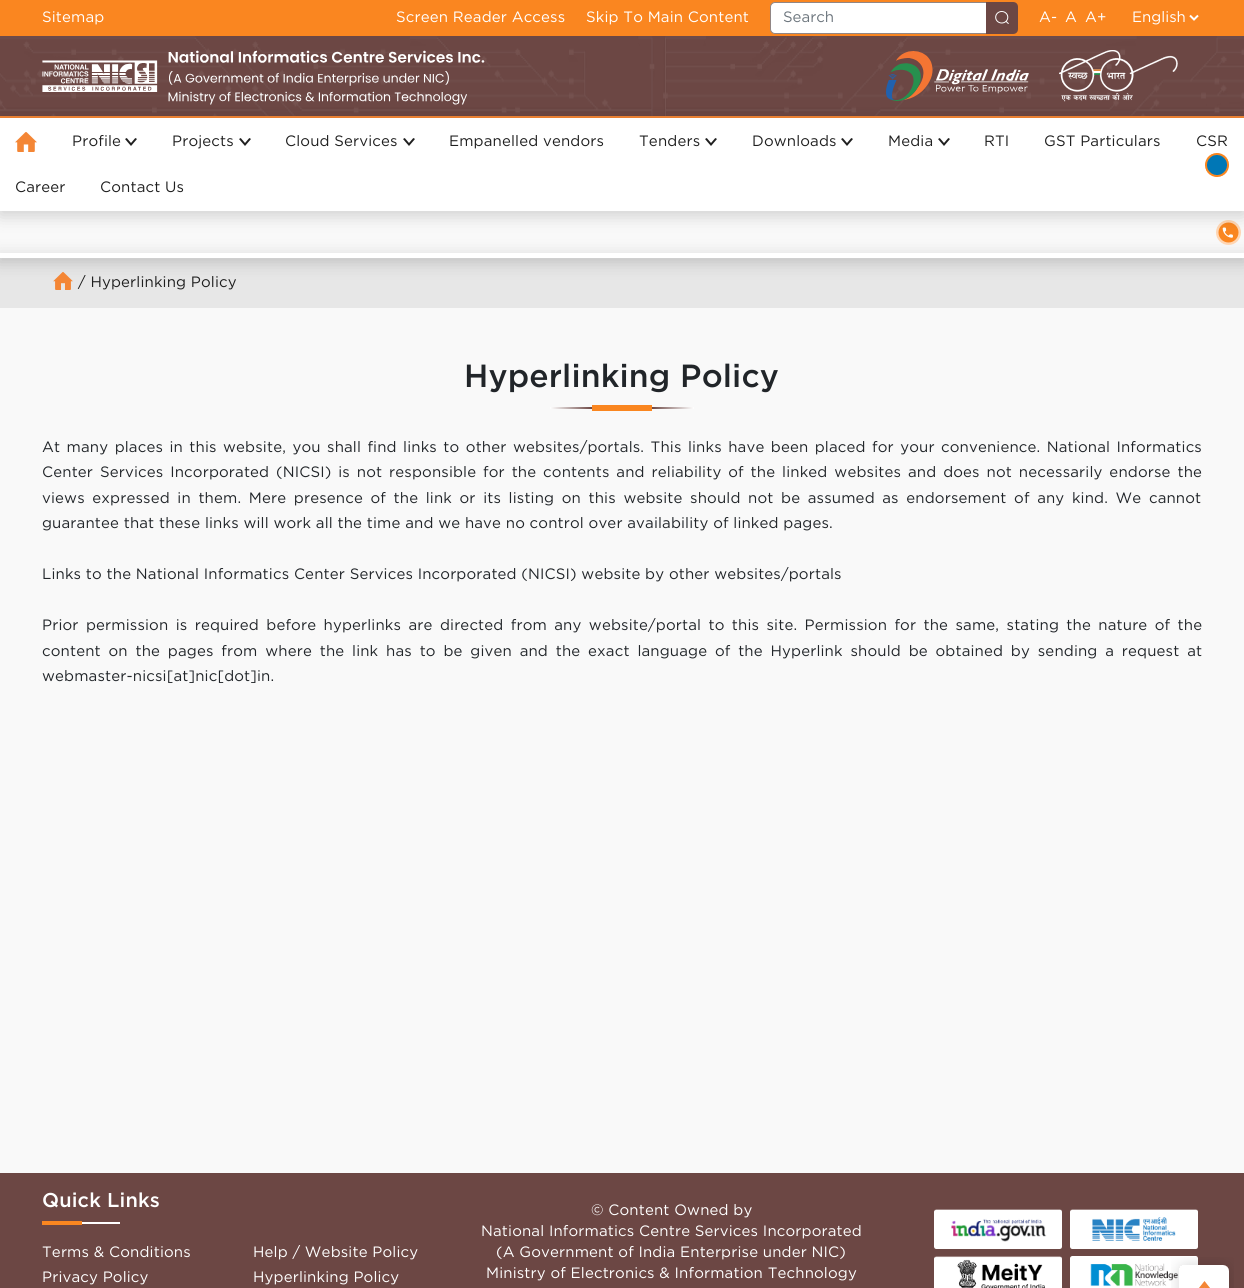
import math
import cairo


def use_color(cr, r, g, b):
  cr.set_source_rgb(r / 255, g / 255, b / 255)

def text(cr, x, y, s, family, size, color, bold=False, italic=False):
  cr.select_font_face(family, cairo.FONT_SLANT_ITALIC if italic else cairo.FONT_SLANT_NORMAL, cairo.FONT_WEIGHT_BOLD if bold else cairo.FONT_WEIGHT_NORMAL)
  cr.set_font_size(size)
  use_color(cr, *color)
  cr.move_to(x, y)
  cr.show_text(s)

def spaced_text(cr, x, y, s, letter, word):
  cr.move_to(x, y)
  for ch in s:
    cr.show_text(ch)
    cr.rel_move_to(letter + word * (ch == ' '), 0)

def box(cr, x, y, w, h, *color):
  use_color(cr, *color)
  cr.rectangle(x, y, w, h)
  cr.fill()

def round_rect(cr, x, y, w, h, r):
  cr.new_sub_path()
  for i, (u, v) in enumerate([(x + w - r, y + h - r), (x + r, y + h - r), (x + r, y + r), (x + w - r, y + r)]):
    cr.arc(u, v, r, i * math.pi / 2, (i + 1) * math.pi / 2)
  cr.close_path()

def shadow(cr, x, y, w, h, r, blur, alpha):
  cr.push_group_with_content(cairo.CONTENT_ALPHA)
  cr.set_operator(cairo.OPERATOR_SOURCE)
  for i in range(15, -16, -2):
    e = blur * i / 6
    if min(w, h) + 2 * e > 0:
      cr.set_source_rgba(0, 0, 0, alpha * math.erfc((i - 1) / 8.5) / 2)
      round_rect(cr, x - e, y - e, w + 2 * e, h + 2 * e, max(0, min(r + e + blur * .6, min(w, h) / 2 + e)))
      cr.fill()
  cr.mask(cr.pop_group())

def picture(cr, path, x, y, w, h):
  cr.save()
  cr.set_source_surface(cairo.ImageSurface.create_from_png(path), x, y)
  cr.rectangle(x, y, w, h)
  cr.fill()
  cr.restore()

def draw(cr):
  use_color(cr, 249, 249, 249)
  cr.paint()
  box(cr, 0, 0, 1244, 36, 250, 134, 32)
  use_color(cr, 255, 255, 255)
  cr.new_path()
  cr.move_to(775, 2.5)
  cr.line_to(986.5, 2.5)
  cr.line_to(986.5, 33.5)
  cr.line_to(775, 33.5)
  cr.curve_to(772.5, 33.5, 770.5, 31.5, 770.5, 29)
  cr.line_to(770.5, 7)
  cr.curve_to(770.5, 4.5, 772.5, 2.5, 775, 2.5)
  cr.close_path()
  cr.fill_preserve()
  use_color(cr, 145, 134, 133)
  cr.set_line_width(1)
  cr.stroke()
  use_color(cr, 108, 71, 68)
  cr.new_path()
  cr.move_to(986, 2)
  cr.line_to(1013, 2)
  cr.curve_to(1016, 2, 1018, 4, 1018, 7)
  cr.line_to(1018, 29)
  cr.curve_to(1018, 32, 1016, 34, 1013, 34)
  cr.line_to(986, 34)
  cr.close_path()
  cr.fill()
  picture(cr, "img_01.png", 995, 11, 14, 13)
  cr.new_path()
  cr.move_to(1190, 15.5)
  cr.line_to(1194, 19.5)
  cr.line_to(1198, 15.5)
  use_color(cr, 255, 255, 255)
  cr.set_line_width(2)
  cr.stroke()
  box(cr, 0, 36, 1244, 80, 108, 71, 68)
  picture(cr, "img_02.png", 0, 36, 1244, 80)
  box(cr, 0, 116, 1244, 2, 244, 134, 53)
  picture(cr, "img_03.png", 42, 50, 443, 55)
  picture(cr, "img_04.png", 886, 51, 143, 50)
  picture(cr, "img_05.png", 1059, 50, 119, 52)
  box(cr, 0, 258, 1244, 50, 231, 231, 231)
  use_color(cr, 0, 0, 0)
  shadow(cr, 0, 257, 1244, 5, 0, 8.5, 0.18)
  picture(cr, "img_09.png", 1216, 220, 25, 25)
  shadow(cr, 0, 122, 1244, 93, 0, 8.5, 0.18)
  box(cr, 0, 118, 1244, 93, 255, 255, 255)
  picture(cr, "img_06.png", 15, 132, 22, 20)
  picture(cr, "img_07.png", 125, 138, 12, 8)
  picture(cr, "img_07.png", 239, 138, 12, 8)
  picture(cr, "img_07.png", 403, 138, 12, 8)
  picture(cr, "img_07.png", 705, 138, 12, 8)
  picture(cr, "img_07.png", 841, 138, 12, 8)
  picture(cr, "img_07.png", 938, 138, 12, 8)
  picture(cr, "img_08.png", 1205, 153, 24, 24)
  box(cr, 0, 253, 1244, 5, 255, 255, 255)
  picture(cr, "img_10.png", 53, 272, 20, 18)
  box(cr, 592, 405, 60, 6, 250, 134, 32)
  gradient = cairo.LinearGradient(550, 408, 592, 408)
  gradient.add_color_stop_rgba(0, 1, 1, 1, 1)
  gradient.add_color_stop_rgba(1, 0.424, 0.278, 0.267, 1)
  cr.set_source(gradient)
  cr.rectangle(550, 407, 42, 2)
  cr.fill()
  gradient = cairo.LinearGradient(652, 408, 694, 408)
  gradient.add_color_stop_rgba(0, 0.424, 0.278, 0.267, 1)
  gradient.add_color_stop_rgba(1, 1, 1, 1, 1)
  cr.set_source(gradient)
  cr.rectangle(652, 407, 42, 2)
  cr.fill()
  box(cr, 0, 1173, 1244, 115, 108, 71, 68)
  box(cr, 42, 1221, 40, 4, 250, 134, 32)
  box(cr, 82, 1222, 38, 2, 255, 255, 255)
  picture(cr, "img_11.png", 934, 1209, 128, 40)
  picture(cr, "img_12.png", 1070, 1209, 128, 40)
  picture(cr, "img_13.png", 934, 1256, 128, 32)
  picture(cr, "img_14.png", 1070, 1256, 128, 32)
  picture(cr, "img_15.png", 1171, 1257, 63, 31)
  cr.select_font_face("Gotham")
  cr.set_font_size(15)
  spaced_text(cr, 42, 22, "Sitemap", 0.15, 0)
  spaced_text(cr, 396, 22, "Screen Reader Access", 0.15, 0)
  spaced_text(cr, 586, 22, "Skip To Main Content", 0.15, 0)
  text(cr, 783, 22, "Search", "Gotham", 15, (108, 117, 125))
  use_color(cr, 255, 255, 255)
  spaced_text(cr, 1039, 22, "A-", 0.15, 0)
  spaced_text(cr, 1065, 22, "A", 0.15, 0)
  spaced_text(cr, 1085, 22, "A+", 0.15, 0)
  text(cr, 1132, 22, "English", "Gotham", 15, (255, 255, 255))
  use_color(cr, 31, 31, 31)
  spaced_text(cr, 72, 146, "Profile", 0.15, 0)
  spaced_text(cr, 172, 146, "Projects", 0.15, 0)
  spaced_text(cr, 285, 146, "Cloud Services", 0.15, 0)
  spaced_text(cr, 449, 146, "Empanelled vendors", 0.15, 0)
  spaced_text(cr, 639, 146, "Tenders", 0.15, 0)
  spaced_text(cr, 752, 146, "Downloads", 0.15, 0)
  spaced_text(cr, 888, 146, "Media", 0.15, 0)
  spaced_text(cr, 984, 146, "RTI", 0.15, 0)
  spaced_text(cr, 1044, 146, "GST Particulars", 0.15, 0)
  spaced_text(cr, 1196, 146, "CSR", 0.15, 0)
  spaced_text(cr, 15, 192, "Career", 0.15, 0)
  spaced_text(cr, 100, 192, "Contact Us", 0.15, 0)
  spaced_text(cr, 78, 287, "/ Hyperlinking Policy", 0.15, 0)
  cr.select_font_face("Gotham Medium")
  cr.set_font_size(32)
  use_color(cr, 33, 37, 41)
  spaced_text(cr, 464, 387, "Hyperlinking Policy", 0.15, 0)
  cr.select_font_face("Gotham")
  cr.set_font_size(15)
  spaced_text(cr, 42, 452, "At many places in this website, you shall find links to other websites/portals. This links have been placed for your convenience. National Informatics", 0.15, 1.75)
  spaced_text(cr, 42, 477, "Center Services Incorporated (NICSI) is not responsible for the contents and reliability of the linked websites and does not necessarily endorse the", 0.15, 2.2)
  spaced_text(cr, 42, 503, "views expressed in them. Mere presence of the link or its listing on this website should not be assumed as endorsement of any kind. We cannot", 0.15, 2.9)
  spaced_text(cr, 42, 528, "guarantee that these links will work all the time and we have no control over availability of linked pages.", 0.15, 0)
  spaced_text(cr, 42, 579, "Links to the National Informatics Center Services Incorporated (NICSI) website by other websites/portals", 0.15, 0)
  spaced_text(cr, 42, 630, "Prior permission is required before hyperlinks are directed from any website/portal to this site. Permission for the same, stating the nature of the", 0.15, 2.7)
  spaced_text(cr, 42, 656, "content on the pages from where the link has to be given and the exact language of the Hyperlink should be obtained by sending a request at", 0.15, 3.1)
  spaced_text(cr, 42, 681, "webmaster-nicsi[at]nic[dot]in.", 0.15, 0)
  cr.select_font_face("Gotham Medium")
  cr.set_font_size(20)
  use_color(cr, 255, 255, 255)
  spaced_text(cr, 42, 1207, "Quick Links", 0.15, 0)
  cr.select_font_face("Gotham")
  cr.set_font_size(15)
  spaced_text(cr, 42, 1257, "Terms & Conditions", 0.15, 0)
  spaced_text(cr, 42, 1282, "Privacy Policy", 0.15, 0)
  spaced_text(cr, 253, 1257, "Help / Website Policy", 0.15, 0)
  spaced_text(cr, 253, 1282, "Hyperlinking Policy", 0.15, 0)
  spaced_text(cr, 591, 1215, "© Content Owned by", 0.15, 0)
  spaced_text(cr, 481, 1236, "National Informatics Centre Services Incorporated", 0.15, 0)
  spaced_text(cr, 496, 1257, "(A Government of India Enterprise under NIC)", 0.15, 0)
  spaced_text(cr, 486, 1278, "Ministry of Electronics & Information Technology", 0.15, 0)


surface = cairo.ImageSurface(cairo.FORMAT_RGB24, 1244, 1288)
cr = cairo.Context(surface)
options = cairo.FontOptions()
options.set_hint_metrics(cairo.HINT_METRICS_OFF)
options.set_hint_style(cairo.HINT_STYLE_NONE)
cr.set_font_options(options)
cr.set_miter_limit(4)
draw(cr)
surface.write_to_png("out.png")
